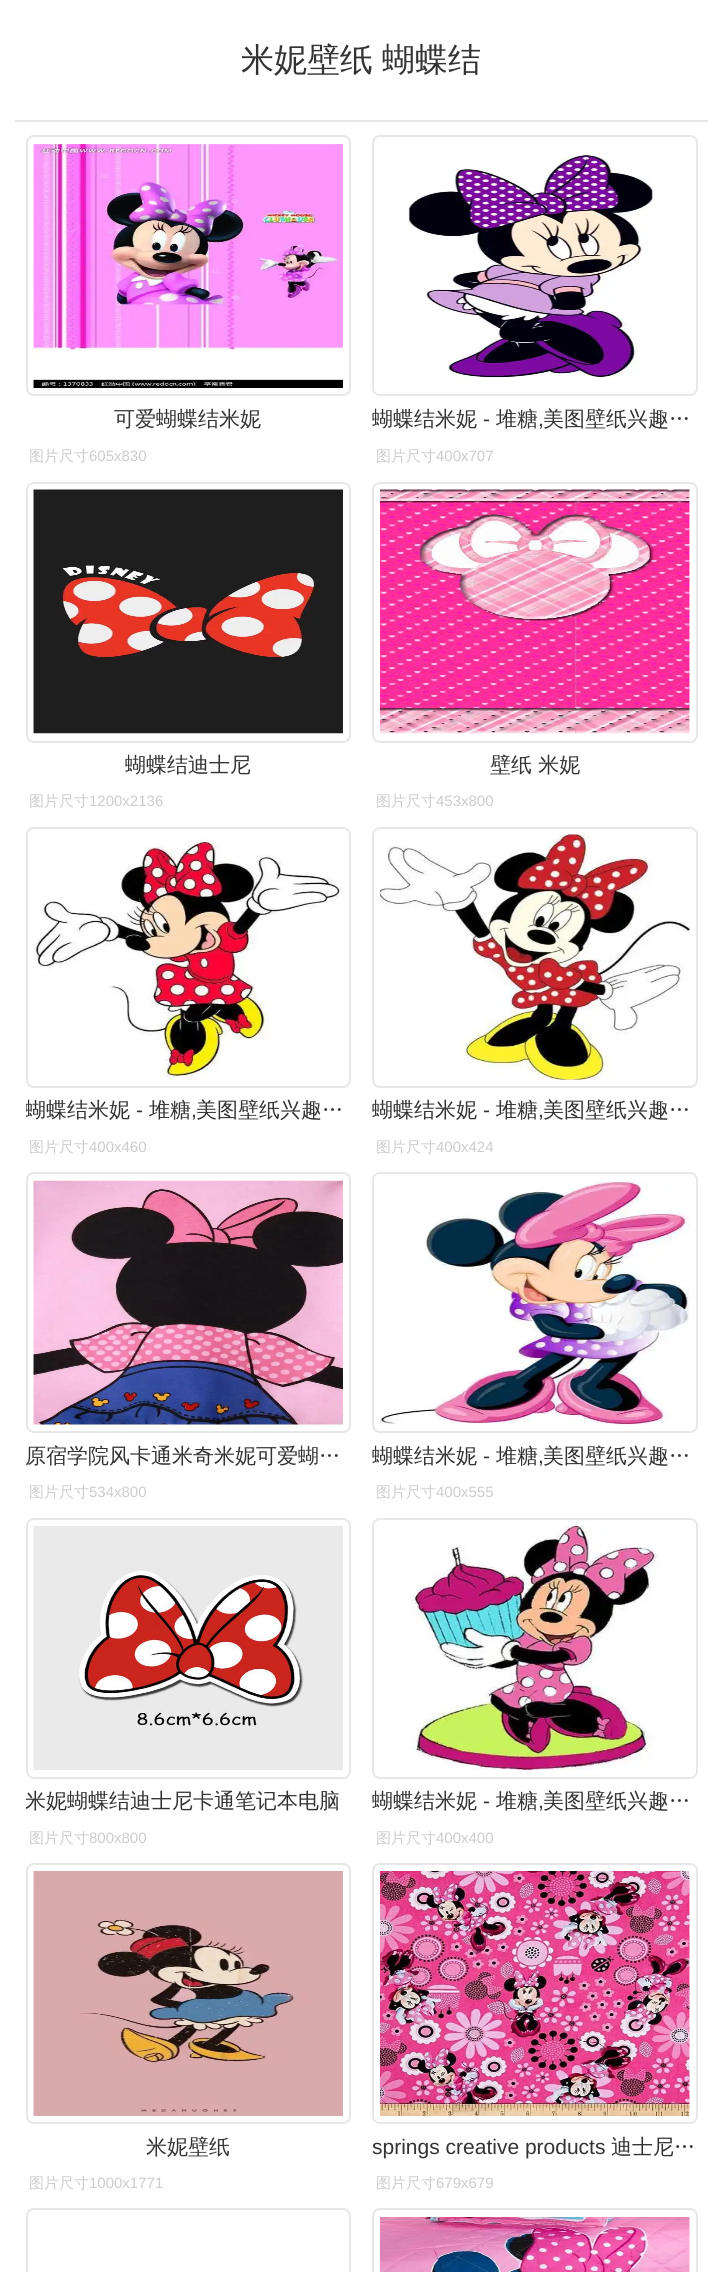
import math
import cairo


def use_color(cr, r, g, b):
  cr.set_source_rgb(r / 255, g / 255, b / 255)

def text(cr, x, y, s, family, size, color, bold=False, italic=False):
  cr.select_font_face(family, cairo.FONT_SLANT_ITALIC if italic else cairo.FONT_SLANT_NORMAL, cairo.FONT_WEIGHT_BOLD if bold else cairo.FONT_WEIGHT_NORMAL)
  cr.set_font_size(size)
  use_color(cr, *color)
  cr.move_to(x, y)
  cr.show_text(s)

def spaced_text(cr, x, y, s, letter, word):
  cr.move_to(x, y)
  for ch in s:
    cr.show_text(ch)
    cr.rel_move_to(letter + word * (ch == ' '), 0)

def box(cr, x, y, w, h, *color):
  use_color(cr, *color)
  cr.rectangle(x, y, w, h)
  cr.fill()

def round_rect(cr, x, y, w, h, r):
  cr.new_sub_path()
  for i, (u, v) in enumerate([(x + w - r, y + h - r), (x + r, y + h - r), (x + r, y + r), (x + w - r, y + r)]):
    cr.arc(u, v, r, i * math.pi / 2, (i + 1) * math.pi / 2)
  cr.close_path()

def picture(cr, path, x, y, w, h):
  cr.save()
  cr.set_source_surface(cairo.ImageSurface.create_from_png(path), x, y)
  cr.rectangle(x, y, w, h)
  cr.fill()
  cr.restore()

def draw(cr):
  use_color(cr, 255, 255, 255)
  cr.paint()
  box(cr, 15, 120, 693, 2, 229, 229, 229)
  round_rect(cr, 27, 136, 323, 259, 7)
  use_color(cr, 231, 231, 231)
  cr.stroke()
  picture(cr, "img_01.png", 33, 144, 310, 244)
  round_rect(cr, 373, 136, 324, 259, 7)
  cr.stroke()
  picture(cr, "img_02.png", 407, 155, 246, 226)
  round_rect(cr, 27, 483, 323, 259, 7)
  cr.stroke()
  picture(cr, "img_03.png", 33, 489, 310, 245)
  round_rect(cr, 373, 483, 324, 259, 7)
  cr.stroke()
  picture(cr, "img_04.png", 380, 489, 310, 245)
  round_rect(cr, 27, 828, 323, 259, 7)
  cr.stroke()
  picture(cr, "img_05.png", 34, 839, 309, 241)
  round_rect(cr, 373, 828, 324, 259, 7)
  cr.stroke()
  picture(cr, "img_06.png", 380, 834, 310, 246)
  round_rect(cr, 27, 1173, 323, 259, 7)
  cr.stroke()
  picture(cr, "img_07.png", 33, 1180, 310, 245)
  round_rect(cr, 373, 1173, 324, 259, 7)
  cr.stroke()
  picture(cr, "img_08.png", 380, 1180, 310, 245)
  round_rect(cr, 27, 1519, 323, 259, 7)
  cr.stroke()
  picture(cr, "img_09.png", 33, 1526, 310, 244)
  round_rect(cr, 373, 1519, 324, 259, 7)
  cr.stroke()
  picture(cr, "img_10.png", 410, 1526, 249, 244)
  round_rect(cr, 27, 1864, 323, 259, 7)
  cr.stroke()
  picture(cr, "img_11.png", 33, 1871, 310, 245)
  round_rect(cr, 373, 1864, 324, 259, 7)
  cr.stroke()
  picture(cr, "img_12.png", 380, 1871, 310, 245)
  round_rect(cr, 27, 2209, 323, 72, 7)
  cr.stroke()
  box(cr, 163, 2271, 12, 1, 250, 253, 253)
  round_rect(cr, 373, 2209, 324, 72, 7)
  use_color(cr, 231, 231, 231)
  cr.stroke()
  picture(cr, "img_13.png", 380, 2217, 310, 55)
  cr.select_font_face("WenQuanYi Zen Hei Medium")
  cr.set_font_size(33)
  use_color(cr, 51, 51, 51)
  spaced_text(cr, 241, 71, "米妮壁纸 蝴蝶结", 0, -1)
  text(cr, 114, 426, "可爱蝴蝶结米妮", "WenQuanYi Zen Hei Medium", 21, (51, 51, 51))
  text(cr, 29, 461, "图片尺寸", "WenQuanYi Zen Hei Medium", 15, (204, 204, 204))
  text(cr, 89, 461, "605x830", "Liberation Sans", 15, (204, 204, 204))
  text(cr, 372, 426, "蝴蝶结米妮", "WenQuanYi Zen Hei Medium", 21, (51, 51, 51))
  text(cr, 483, 426, "-", "Liberation Sans", 21, (51, 51, 51))
  text(cr, 496, 426, "堆糖", "WenQuanYi Zen Hei Medium", 21, (51, 51, 51))
  text(cr, 543, 426, "美图壁纸兴趣…", "WenQuanYi Zen Hei Medium", 21, (51, 51, 51))
  text(cr, 538, 426, ",", "Liberation Sans", 21, (51, 51, 51))
  text(cr, 376, 461, "图片尺寸", "WenQuanYi Zen Hei Medium", 15, (204, 204, 204))
  text(cr, 436, 461, "400x707", "Liberation Sans", 15, (204, 204, 204))
  text(cr, 125, 772, "蝴蝶结迪士尼", "WenQuanYi Zen Hei Medium", 21, (51, 51, 51))
  text(cr, 29, 806, "图片尺寸", "WenQuanYi Zen Hei Medium", 15, (204, 204, 204))
  text(cr, 89, 806, "1200x2136", "Liberation Sans", 15, (204, 204, 204))
  text(cr, 490, 772, "壁纸 米妮", "WenQuanYi Zen Hei Medium", 21, (51, 51, 51))
  text(cr, 376, 806, "图片尺寸", "WenQuanYi Zen Hei Medium", 15, (204, 204, 204))
  text(cr, 436, 806, "453x800", "Liberation Sans", 15, (204, 204, 204))
  cr.save()
  cr.rectangle(26, 1088, 325, 45)
  cr.clip()
  text(cr, 25, 1117, "蝴蝶结米妮", "WenQuanYi Zen Hei Medium", 21, (51, 51, 51))
  cr.restore()
  text(cr, 136, 1117, "-", "Liberation Sans", 21, (51, 51, 51))
  text(cr, 149, 1117, "堆糖", "WenQuanYi Zen Hei Medium", 21, (51, 51, 51))
  text(cr, 196, 1117, "美图壁纸兴趣…", "WenQuanYi Zen Hei Medium", 21, (51, 51, 51))
  text(cr, 191, 1117, ",", "Liberation Sans", 21, (51, 51, 51))
  text(cr, 29, 1152, "图片尺寸", "WenQuanYi Zen Hei Medium", 15, (204, 204, 204))
  text(cr, 89, 1152, "400x460", "Liberation Sans", 15, (204, 204, 204))
  text(cr, 372, 1117, "蝴蝶结米妮", "WenQuanYi Zen Hei Medium", 21, (51, 51, 51))
  text(cr, 483, 1117, "-", "Liberation Sans", 21, (51, 51, 51))
  text(cr, 496, 1117, "堆糖", "WenQuanYi Zen Hei Medium", 21, (51, 51, 51))
  text(cr, 543, 1117, "美图壁纸兴趣…", "WenQuanYi Zen Hei Medium", 21, (51, 51, 51))
  text(cr, 538, 1117, ",", "Liberation Sans", 21, (51, 51, 51))
  text(cr, 376, 1152, "图片尺寸", "WenQuanYi Zen Hei Medium", 15, (204, 204, 204))
  text(cr, 436, 1152, "400x424", "Liberation Sans", 15, (204, 204, 204))
  text(cr, 25, 1463, "原宿学院风卡通米奇米妮可爱蝴…", "WenQuanYi Zen Hei Medium", 21, (51, 51, 51))
  text(cr, 29, 1497, "图片尺寸", "WenQuanYi Zen Hei Medium", 15, (204, 204, 204))
  text(cr, 89, 1497, "534x800", "Liberation Sans", 15, (204, 204, 204))
  text(cr, 372, 1463, "蝴蝶结米妮", "WenQuanYi Zen Hei Medium", 21, (51, 51, 51))
  text(cr, 483, 1463, "-", "Liberation Sans", 21, (51, 51, 51))
  text(cr, 496, 1463, "堆糖", "WenQuanYi Zen Hei Medium", 21, (51, 51, 51))
  text(cr, 543, 1463, "美图壁纸兴趣…", "WenQuanYi Zen Hei Medium", 21, (51, 51, 51))
  text(cr, 538, 1463, ",", "Liberation Sans", 21, (51, 51, 51))
  text(cr, 376, 1497, "图片尺寸", "WenQuanYi Zen Hei Medium", 15, (204, 204, 204))
  text(cr, 436, 1497, "400x555", "Liberation Sans", 15, (204, 204, 204))
  cr.save()
  cr.rectangle(26, 1779, 325, 45)
  cr.clip()
  text(cr, 25, 1808, "米妮蝴蝶结迪士尼卡通笔记本电脑", "WenQuanYi Zen Hei Medium", 21, (51, 51, 51))
  cr.restore()
  text(cr, 29, 1843, "图片尺寸", "WenQuanYi Zen Hei Medium", 15, (204, 204, 204))
  text(cr, 89, 1843, "800x800", "Liberation Sans", 15, (204, 204, 204))
  text(cr, 372, 1808, "蝴蝶结米妮", "WenQuanYi Zen Hei Medium", 21, (51, 51, 51))
  text(cr, 483, 1808, "-", "Liberation Sans", 21, (51, 51, 51))
  text(cr, 496, 1808, "堆糖", "WenQuanYi Zen Hei Medium", 21, (51, 51, 51))
  text(cr, 543, 1808, "美图壁纸兴趣…", "WenQuanYi Zen Hei Medium", 21, (51, 51, 51))
  text(cr, 538, 1808, ",", "Liberation Sans", 21, (51, 51, 51))
  text(cr, 376, 1843, "图片尺寸", "WenQuanYi Zen Hei Medium", 15, (204, 204, 204))
  text(cr, 436, 1843, "400x400", "Liberation Sans", 15, (204, 204, 204))
  text(cr, 146, 2154, "米妮壁纸", "WenQuanYi Zen Hei Medium", 21, (51, 51, 51))
  text(cr, 29, 2188, "图片尺寸", "WenQuanYi Zen Hei Medium", 15, (204, 204, 204))
  text(cr, 89, 2188, "1000x1771", "Liberation Sans", 15, (204, 204, 204))
  text(cr, 372, 2154, "springs creative products", "Liberation Sans", 21, (51, 51, 51))
  text(cr, 611, 2154, "迪士尼…", "WenQuanYi Zen Hei Medium", 21, (51, 51, 51))
  text(cr, 376, 2188, "图片尺寸", "WenQuanYi Zen Hei Medium", 15, (204, 204, 204))
  text(cr, 436, 2188, "679x679", "Liberation Sans", 15, (204, 204, 204))


surface = cairo.ImageSurface(cairo.FORMAT_RGB24, 722, 2272)
cr = cairo.Context(surface)
options = cairo.FontOptions()
options.set_hint_metrics(cairo.HINT_METRICS_OFF)
options.set_hint_style(cairo.HINT_STYLE_NONE)
cr.set_font_options(options)
cr.set_miter_limit(4)
draw(cr)
surface.write_to_png("out.png")
